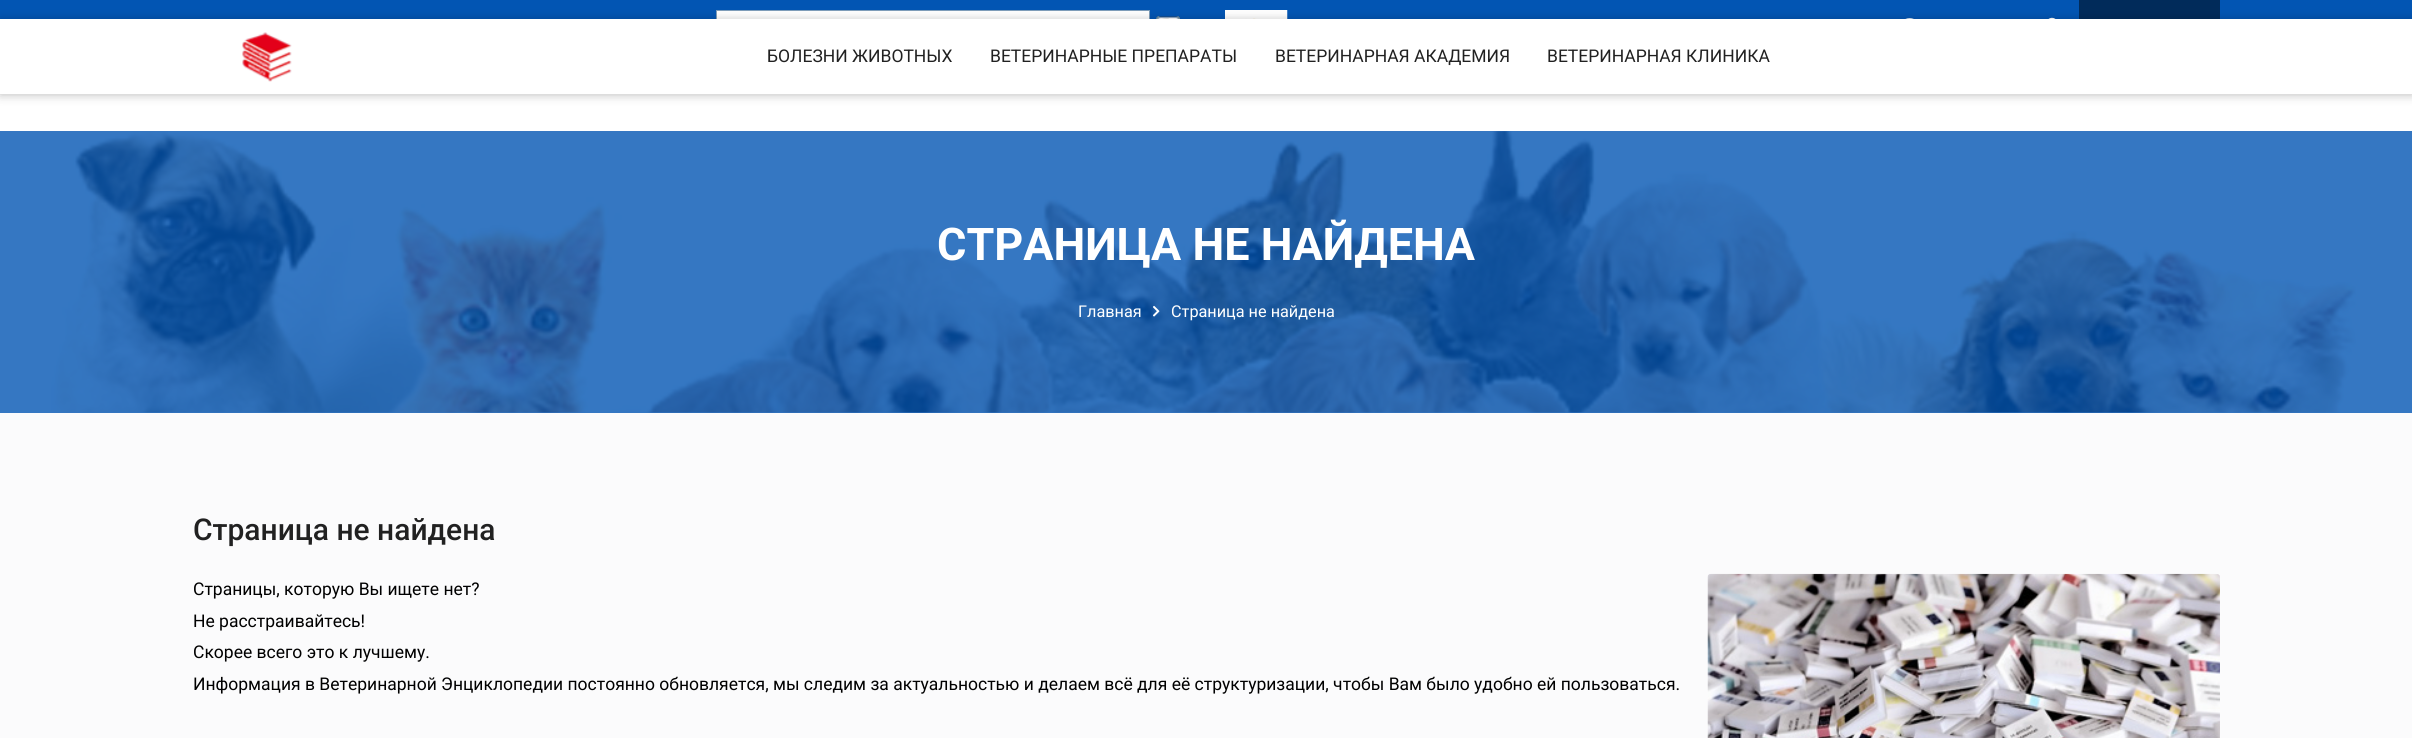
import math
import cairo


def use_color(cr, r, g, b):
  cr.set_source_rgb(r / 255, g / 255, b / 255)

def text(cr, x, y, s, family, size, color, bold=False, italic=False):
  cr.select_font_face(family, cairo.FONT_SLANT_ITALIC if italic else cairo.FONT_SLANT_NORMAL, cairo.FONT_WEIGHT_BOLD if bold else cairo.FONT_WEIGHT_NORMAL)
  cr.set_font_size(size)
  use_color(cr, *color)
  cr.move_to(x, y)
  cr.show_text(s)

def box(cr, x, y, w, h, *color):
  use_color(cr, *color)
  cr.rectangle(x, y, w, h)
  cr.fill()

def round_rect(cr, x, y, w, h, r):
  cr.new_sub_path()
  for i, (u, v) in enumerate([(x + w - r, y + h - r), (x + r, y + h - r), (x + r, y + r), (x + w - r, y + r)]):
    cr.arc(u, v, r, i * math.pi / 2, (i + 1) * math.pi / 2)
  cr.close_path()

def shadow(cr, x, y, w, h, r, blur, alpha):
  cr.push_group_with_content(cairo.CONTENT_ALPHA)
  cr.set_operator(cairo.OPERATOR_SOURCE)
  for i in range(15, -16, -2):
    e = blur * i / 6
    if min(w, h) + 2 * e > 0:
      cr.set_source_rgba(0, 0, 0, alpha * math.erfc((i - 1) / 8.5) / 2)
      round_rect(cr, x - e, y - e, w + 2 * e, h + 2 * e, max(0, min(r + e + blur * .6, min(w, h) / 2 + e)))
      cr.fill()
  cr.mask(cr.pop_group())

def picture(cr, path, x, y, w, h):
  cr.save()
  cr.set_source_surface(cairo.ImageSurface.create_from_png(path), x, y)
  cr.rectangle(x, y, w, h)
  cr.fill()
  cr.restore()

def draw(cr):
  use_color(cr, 255, 255, 255)
  cr.paint()
  box(cr, 0, 131, 2412, 282, 53, 119, 194)
  box(cr, 0, 0, 2412, 19, 2, 85, 179)
  box(cr, 717, 11, 432, 8, 255, 255, 255)
  cr.rectangle(716.5, 10.5, 433, 32)
  use_color(cr, 127, 157, 185)
  cr.set_line_width(1)
  cr.stroke()
  picture(cr, "img_01.png", 1156, 16, 24, 3)
  picture(cr, "img_02.png", 1225, 10, 63, 9)
  picture(cr, "img_03.png", 1905, 18, 9, 1)
  picture(cr, "img_04.png", 2048, 17, 8, 2)
  box(cr, 2079, 0, 141, 19, 1, 43, 90)
  use_color(cr, 0, 0, 0)
  shadow(cr, 0, 20, 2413, 75, 0, 5, 0.25)
  box(cr, 0, 19, 2412, 75, 255, 255, 255)
  picture(cr, "img_05.png", 242, 32, 50, 50)
  picture(cr, "img_06.png", 51, 131, 2305, 282)
  picture(cr, "img_07.png", 1153, 305, 7, 12)
  box(cr, 0, 413, 2412, 325, 251, 251, 252)
  picture(cr, "img_08.png", 1707, 573, 513, 165)
  text(cr, 767, 62, "БОЛЕЗНИ ЖИВОТНЫХ", "Roboto", 17.5, (33, 33, 33))
  text(cr, 990, 62, "ВЕТЕРИНАРНЫЕ ПРЕПАРАТЫ", "Roboto", 17.5, (33, 33, 33))
  text(cr, 1275, 62, "ВЕТЕРИНАРНАЯ АКАДЕМИЯ", "Roboto", 17.5, (33, 33, 33))
  text(cr, 1547, 62, "ВЕТЕРИНАРНАЯ КЛИНИКА", "Roboto", 17.5, (33, 33, 33))
  text(cr, 937, 260, "СТРАНИЦА НЕ НАЙДЕНА", "Roboto", 45, (255, 255, 255), bold=True)
  text(cr, 1078, 317, "Главная", "Roboto", 16.25, (255, 255, 255))
  text(cr, 1171, 317, "Страница не найдена", "Roboto", 16.25, (255, 255, 255))
  text(cr, 193, 540, "Страница не найдена", "Roboto Medium", 30, (33, 33, 33))
  text(cr, 193, 595, "Страницы, которую Вы ищете нет?", "Roboto", 17.5, (0, 0, 0))
  text(cr, 193, 627, "Не расстраивайтесь!", "Roboto", 17.5, (0, 0, 0))
  text(cr, 193, 658, "Скорее всего это к лучшему.", "Roboto", 17.5, (0, 0, 0))
  text(cr, 193, 690, "Информация в Ветеринарной Энциклопедии постоянно обновляется, мы следим за актуальностью и делаем всё для её структуризации, чтобы Вам было удобно ей пользоваться.", "Roboto", 17.5, (0, 0, 0))


surface = cairo.ImageSurface(cairo.FORMAT_RGB24, 2412, 738)
cr = cairo.Context(surface)
options = cairo.FontOptions()
options.set_hint_metrics(cairo.HINT_METRICS_OFF)
options.set_hint_style(cairo.HINT_STYLE_NONE)
cr.set_font_options(options)
cr.set_miter_limit(4)
draw(cr)
surface.write_to_png("out.png")
